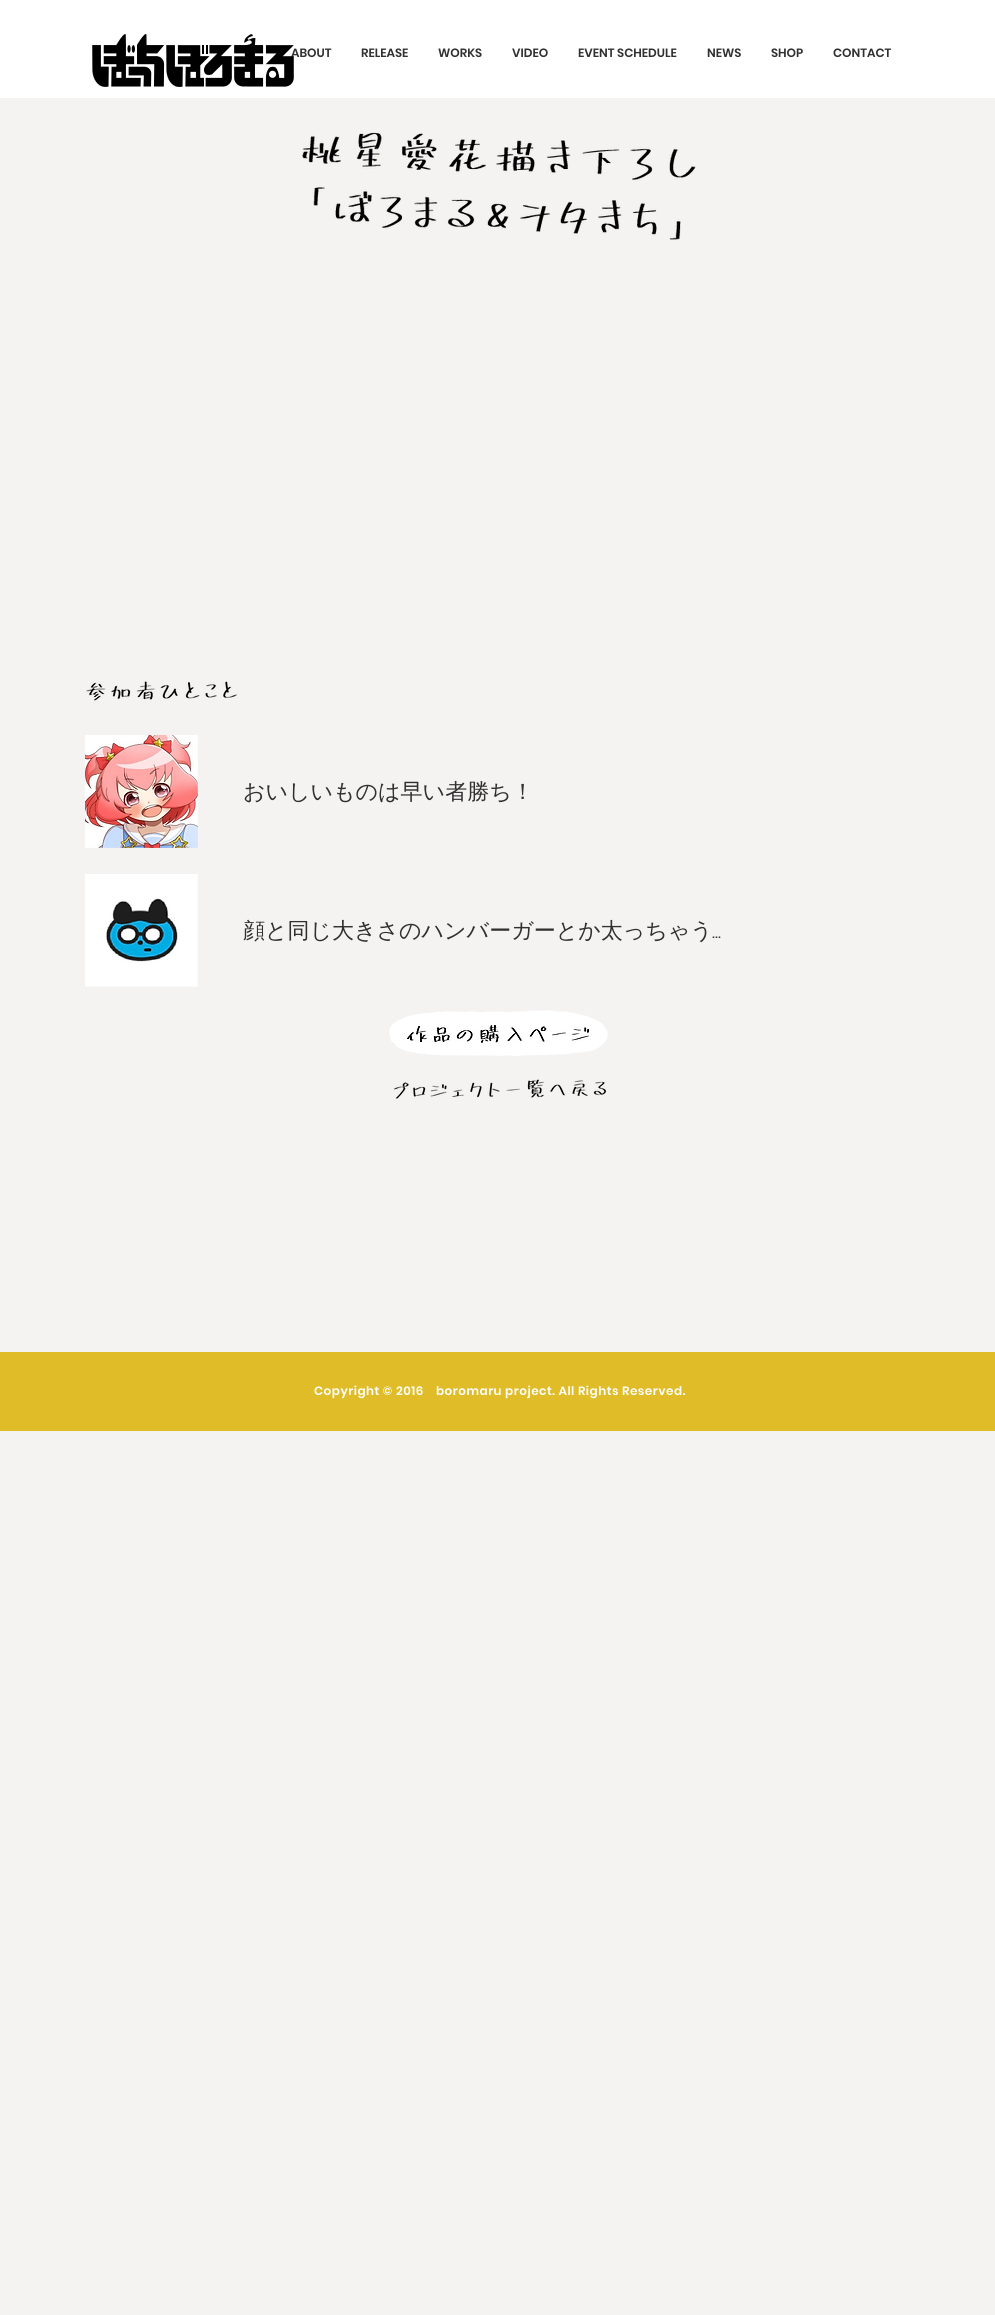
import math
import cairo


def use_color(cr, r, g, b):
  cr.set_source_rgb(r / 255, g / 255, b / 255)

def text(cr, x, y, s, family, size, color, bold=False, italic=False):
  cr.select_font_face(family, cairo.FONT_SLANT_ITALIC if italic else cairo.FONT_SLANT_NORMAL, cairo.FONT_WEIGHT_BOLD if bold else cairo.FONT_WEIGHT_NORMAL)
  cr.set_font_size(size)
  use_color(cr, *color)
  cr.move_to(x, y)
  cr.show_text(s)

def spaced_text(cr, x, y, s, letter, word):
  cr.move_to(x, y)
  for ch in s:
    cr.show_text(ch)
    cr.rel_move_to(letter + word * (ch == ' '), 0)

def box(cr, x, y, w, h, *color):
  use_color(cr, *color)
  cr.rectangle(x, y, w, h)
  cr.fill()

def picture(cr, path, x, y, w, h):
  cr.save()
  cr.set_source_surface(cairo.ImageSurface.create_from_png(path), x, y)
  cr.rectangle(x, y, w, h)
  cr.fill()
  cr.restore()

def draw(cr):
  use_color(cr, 245, 242, 242)
  cr.paint()
  box(cr, 0, 0, 995, 98, 255, 255, 255)
  picture(cr, "img_02.png", 302, 132, 394, 108)
  picture(cr, "img_03.png", 86, 681, 151, 20)
  picture(cr, "img_04.png", 85, 735, 113, 113)
  picture(cr, "img_05.png", 85, 874, 113, 113)
  picture(cr, "img_06.png", 389, 1010, 219, 46)
  picture(cr, "img_07.png", 393, 1079, 214, 20)
  box(cr, 0, 1352, 995, 79, 224, 188, 40)
  text(cr, 291, 57, "ABOUT", "Poppins SemiBold", 12, (48, 48, 48))
  picture(cr, "img_01.png", 92, 34, 202, 53)
  text(cr, 361, 57, "RELEASE", "Poppins SemiBold", 12, (48, 48, 48))
  text(cr, 438, 57, "WORKS", "Poppins SemiBold", 12, (48, 48, 48))
  text(cr, 512, 57, "VIDEO", "Poppins SemiBold", 12, (48, 48, 48))
  text(cr, 578, 57, "EVENT SCHEDULE", "Poppins SemiBold", 12, (48, 48, 48))
  text(cr, 707, 57, "NEWS", "Poppins SemiBold", 12, (48, 48, 48))
  text(cr, 771, 57, "SHOP", "Poppins SemiBold", 12, (48, 48, 48))
  text(cr, 833, 57, "CONTACT", "Poppins SemiBold", 12, (48, 48, 48))
  text(cr, 243, 799, "おいしいものは早い者勝ち！", "WenQuanYi Zen Hei Medium", 22, (48, 48, 48))
  text(cr, 243, 938, "顔と同じ大きさのハンバーガーとか太っちゃう", "WenQuanYi Zen Hei Medium", 22, (48, 48, 48))
  text(cr, 712, 938, "...", "Poppins ExtraLight", 22, (48, 48, 48))
  cr.select_font_face("Poppins SemiBold")
  cr.set_font_size(12)
  use_color(cr, 255, 255, 255)
  spaced_text(cr, 314, 1395, "Copyright © 2016", 0.5, 0)
  spaced_text(cr, 436, 1395, "boromaru project. All Rights Reserved.", 0.5, 0)


surface = cairo.ImageSurface(cairo.FORMAT_RGB24, 995, 2315)
cr = cairo.Context(surface)
options = cairo.FontOptions()
options.set_hint_metrics(cairo.HINT_METRICS_OFF)
options.set_hint_style(cairo.HINT_STYLE_NONE)
cr.set_font_options(options)
cr.set_miter_limit(4)
draw(cr)
surface.write_to_png("out.png")
